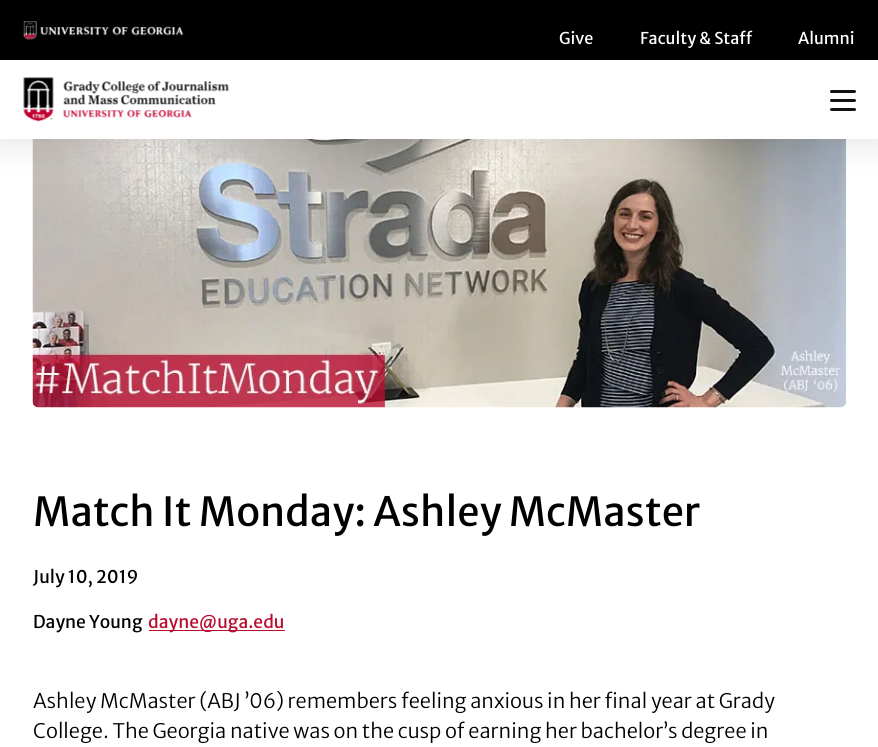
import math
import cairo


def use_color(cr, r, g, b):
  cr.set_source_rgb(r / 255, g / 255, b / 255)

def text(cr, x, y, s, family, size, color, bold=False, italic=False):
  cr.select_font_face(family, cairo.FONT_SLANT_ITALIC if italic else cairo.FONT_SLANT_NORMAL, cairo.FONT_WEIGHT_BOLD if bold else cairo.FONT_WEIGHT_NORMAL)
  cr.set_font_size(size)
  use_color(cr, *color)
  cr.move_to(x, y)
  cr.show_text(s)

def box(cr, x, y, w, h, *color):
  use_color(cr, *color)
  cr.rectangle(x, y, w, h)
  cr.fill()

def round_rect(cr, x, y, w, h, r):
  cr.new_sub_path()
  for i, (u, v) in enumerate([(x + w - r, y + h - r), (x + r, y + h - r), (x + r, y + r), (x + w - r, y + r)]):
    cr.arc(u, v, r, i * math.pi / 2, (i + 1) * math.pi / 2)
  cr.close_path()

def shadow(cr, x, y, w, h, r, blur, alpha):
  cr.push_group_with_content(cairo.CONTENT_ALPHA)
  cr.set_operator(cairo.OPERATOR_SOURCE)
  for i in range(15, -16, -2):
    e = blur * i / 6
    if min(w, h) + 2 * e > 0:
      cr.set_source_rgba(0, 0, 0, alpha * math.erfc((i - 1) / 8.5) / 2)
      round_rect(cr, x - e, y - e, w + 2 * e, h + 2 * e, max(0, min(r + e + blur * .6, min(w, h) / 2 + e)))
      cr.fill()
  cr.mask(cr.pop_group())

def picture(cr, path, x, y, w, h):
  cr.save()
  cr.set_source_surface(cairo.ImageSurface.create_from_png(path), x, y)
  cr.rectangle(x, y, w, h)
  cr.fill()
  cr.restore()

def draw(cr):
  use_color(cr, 255, 255, 255)
  cr.paint()
  picture(cr, "img_03.png", 32, 139, 815, 269)
  use_color(cr, 0, 0, 0)
  shadow(cr, 0, 6, 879, 139, 0, 16.5, 0.1)
  box(cr, 0, 60, 878, 79, 255, 255, 255)
  box(cr, 0, 0, 878, 60, 0, 0, 0)
  picture(cr, "img_01.png", 23, 21, 161, 20)
  picture(cr, "img_02.png", 23, 77, 206, 45)
  use_color(cr, 19, 19, 19)
  round_rect(cr, 830, 90, 26, 3, 1.5)
  cr.fill()
  round_rect(cr, 830, 99, 26, 3, 1.5)
  cr.fill()
  round_rect(cr, 830, 108, 26, 3, 1.5)
  cr.fill()
  box(cr, 149, 630, 136, 1, 186, 12, 47)
  text(cr, 559, 44, "Give", "Merriweather Sans", 16.25, (255, 255, 255))
  text(cr, 640, 44, "Faculty & Staff", "Merriweather Sans", 16.25, (255, 255, 255))
  text(cr, 798, 44, "Alumni", "Merriweather Sans", 16.25, (255, 255, 255))
  text(cr, 33, 526, "Match It Monday: Ashley McMaster", "Merriweather Sans", 40, (0, 0, 0))
  text(cr, 33, 583, "July 10, 2019", "Merriweather Sans", 17.5, (0, 0, 0))
  text(cr, 33, 628, "Dayne Young", "Merriweather Sans", 17.5, (0, 0, 0))
  text(cr, 148, 628, "dayne@uga.edu", "Merriweather Sans", 17.5, (186, 12, 47))
  text(cr, 33, 708, "Ashley McMaster (ABJ ’06) remembers feeling anxious in her final year at Grady", "Merriweather Sans Light", 20, (0, 0, 0))
  text(cr, 33, 738, "College. The Georgia native was on the cusp of earning her bachelor’s degree in", "Merriweather Sans Light", 20, (0, 0, 0))


surface = cairo.ImageSurface(cairo.FORMAT_RGB24, 878, 747)
cr = cairo.Context(surface)
options = cairo.FontOptions()
options.set_hint_metrics(cairo.HINT_METRICS_OFF)
options.set_hint_style(cairo.HINT_STYLE_NONE)
cr.set_font_options(options)
cr.set_miter_limit(4)
draw(cr)
surface.write_to_png("out.png")
